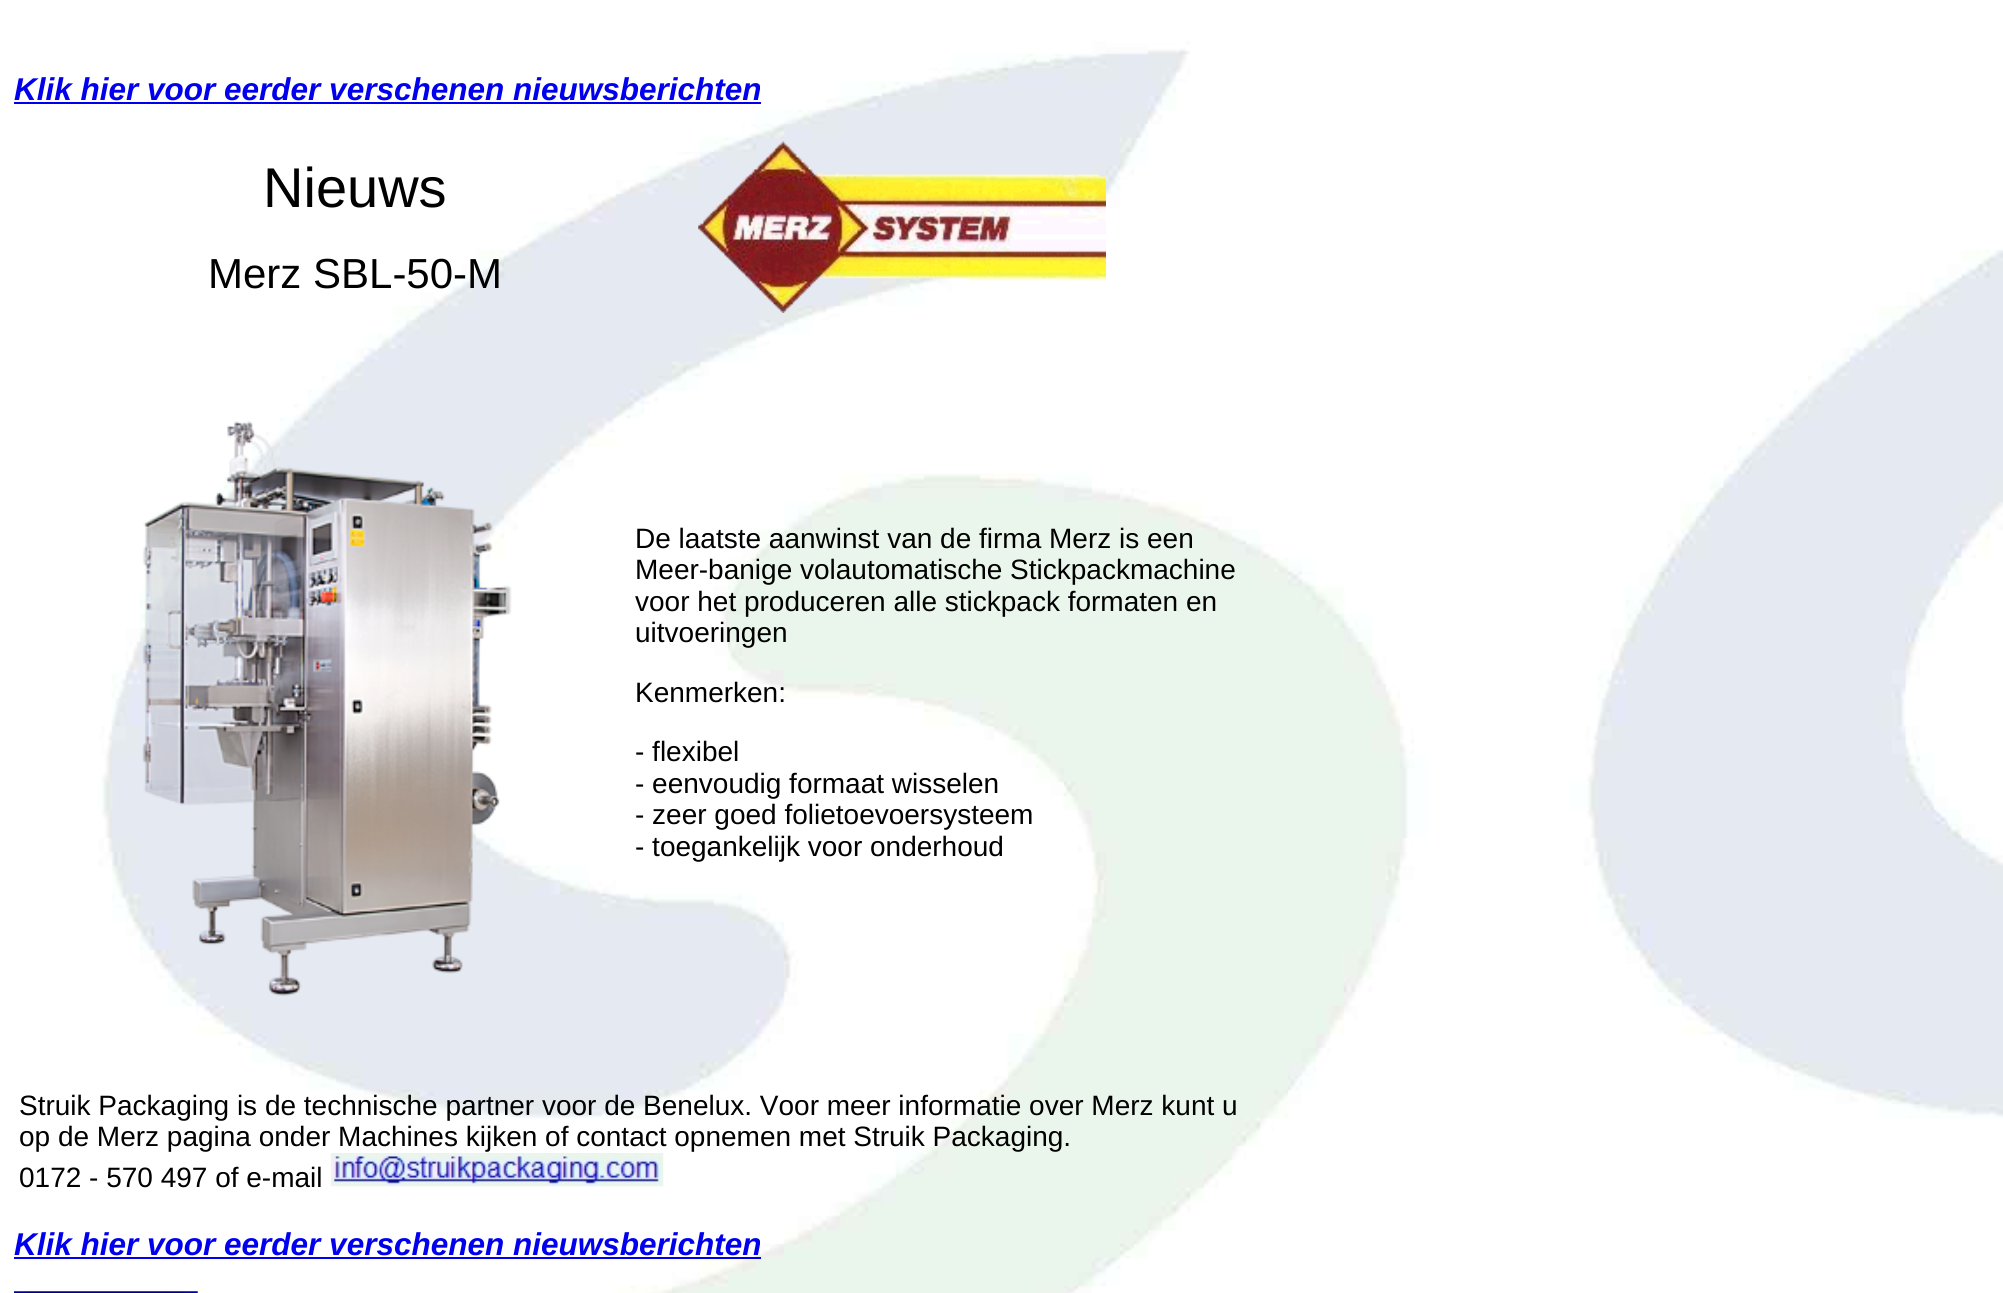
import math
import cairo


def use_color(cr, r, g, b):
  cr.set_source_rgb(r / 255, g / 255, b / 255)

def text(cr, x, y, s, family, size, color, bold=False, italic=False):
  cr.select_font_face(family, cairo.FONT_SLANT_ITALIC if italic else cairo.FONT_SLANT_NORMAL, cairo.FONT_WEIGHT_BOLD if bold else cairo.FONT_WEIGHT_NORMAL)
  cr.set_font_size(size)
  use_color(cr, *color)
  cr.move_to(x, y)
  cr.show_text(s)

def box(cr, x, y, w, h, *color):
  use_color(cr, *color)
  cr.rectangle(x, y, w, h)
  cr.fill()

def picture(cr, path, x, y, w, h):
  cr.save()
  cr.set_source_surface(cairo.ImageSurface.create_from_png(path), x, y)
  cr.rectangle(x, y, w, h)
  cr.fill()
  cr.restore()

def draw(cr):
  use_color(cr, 255, 255, 255)
  cr.paint()
  picture(cr, "img_01.png", 98, 41, 1905, 1252)
  box(cr, 14, 102, 747, 2, 0, 0, 238)
  picture(cr, "img_02.png", 698, 141, 408, 172)
  picture(cr, "img_03.png", 142, 421, 370, 575)
  picture(cr, "img_04.png", 330, 1153, 334, 34)
  box(cr, 14, 1257, 747, 2, 0, 0, 238)
  picture(cr, "img_05.png", 14, 1291, 184, 2)
  text(cr, 14, 100, "Klik hier voor eerder verschenen nieuwsberichten", "Liberation Sans", 31.5, (0, 0, 238), bold=True, italic=True)
  text(cr, 263, 207, "Nieuws", "Liberation Sans", 56, (0, 0, 0))
  text(cr, 208, 288, "Merz SBL-50-M", "Liberation Sans", 42, (0, 0, 0))
  text(cr, 635, 548, "De laatste aanwinst van de firma Merz is een", "Liberation Sans", 28, (0, 0, 0))
  text(cr, 635, 579, "Meer-banige volautomatische Stickpackmachine", "Liberation Sans", 28, (0, 0, 0))
  text(cr, 635, 611, "voor het produceren alle stickpack formaten en", "Liberation Sans", 28, (0, 0, 0))
  text(cr, 635, 642, "uitvoeringen", "Liberation Sans", 28, (0, 0, 0))
  text(cr, 635, 702, "Kenmerken:", "Liberation Sans", 28, (0, 0, 0))
  text(cr, 635, 761, "- flexibel", "Liberation Sans", 28, (0, 0, 0))
  text(cr, 635, 793, "- eenvoudig formaat wisselen", "Liberation Sans", 28, (0, 0, 0))
  text(cr, 635, 824, "- zeer goed folietoevoersysteem", "Liberation Sans", 28, (0, 0, 0))
  text(cr, 635, 856, "- toegankelijk voor onderhoud", "Liberation Sans", 28, (0, 0, 0))
  text(cr, 19, 1115, "Struik Packaging is de technische partner voor de Benelux. Voor meer informatie over Merz kunt u", "Liberation Sans", 28, (0, 0, 0))
  text(cr, 19, 1146, "op de Merz pagina onder Machines kijken of contact opnemen met Struik Packaging.", "Liberation Sans", 28, (0, 0, 0))
  text(cr, 19, 1187, "0172 - 570 497 of e-mail", "Liberation Sans", 28, (0, 0, 0))
  text(cr, 14, 1255, "Klik hier voor eerder verschenen nieuwsberichten", "Liberation Sans", 31.5, (0, 0, 238), bold=True, italic=True)


surface = cairo.ImageSurface(cairo.FORMAT_RGB24, 2003, 1293)
cr = cairo.Context(surface)
options = cairo.FontOptions()
options.set_hint_metrics(cairo.HINT_METRICS_OFF)
options.set_hint_style(cairo.HINT_STYLE_NONE)
cr.set_font_options(options)
cr.set_miter_limit(4)
draw(cr)
surface.write_to_png("out.png")
